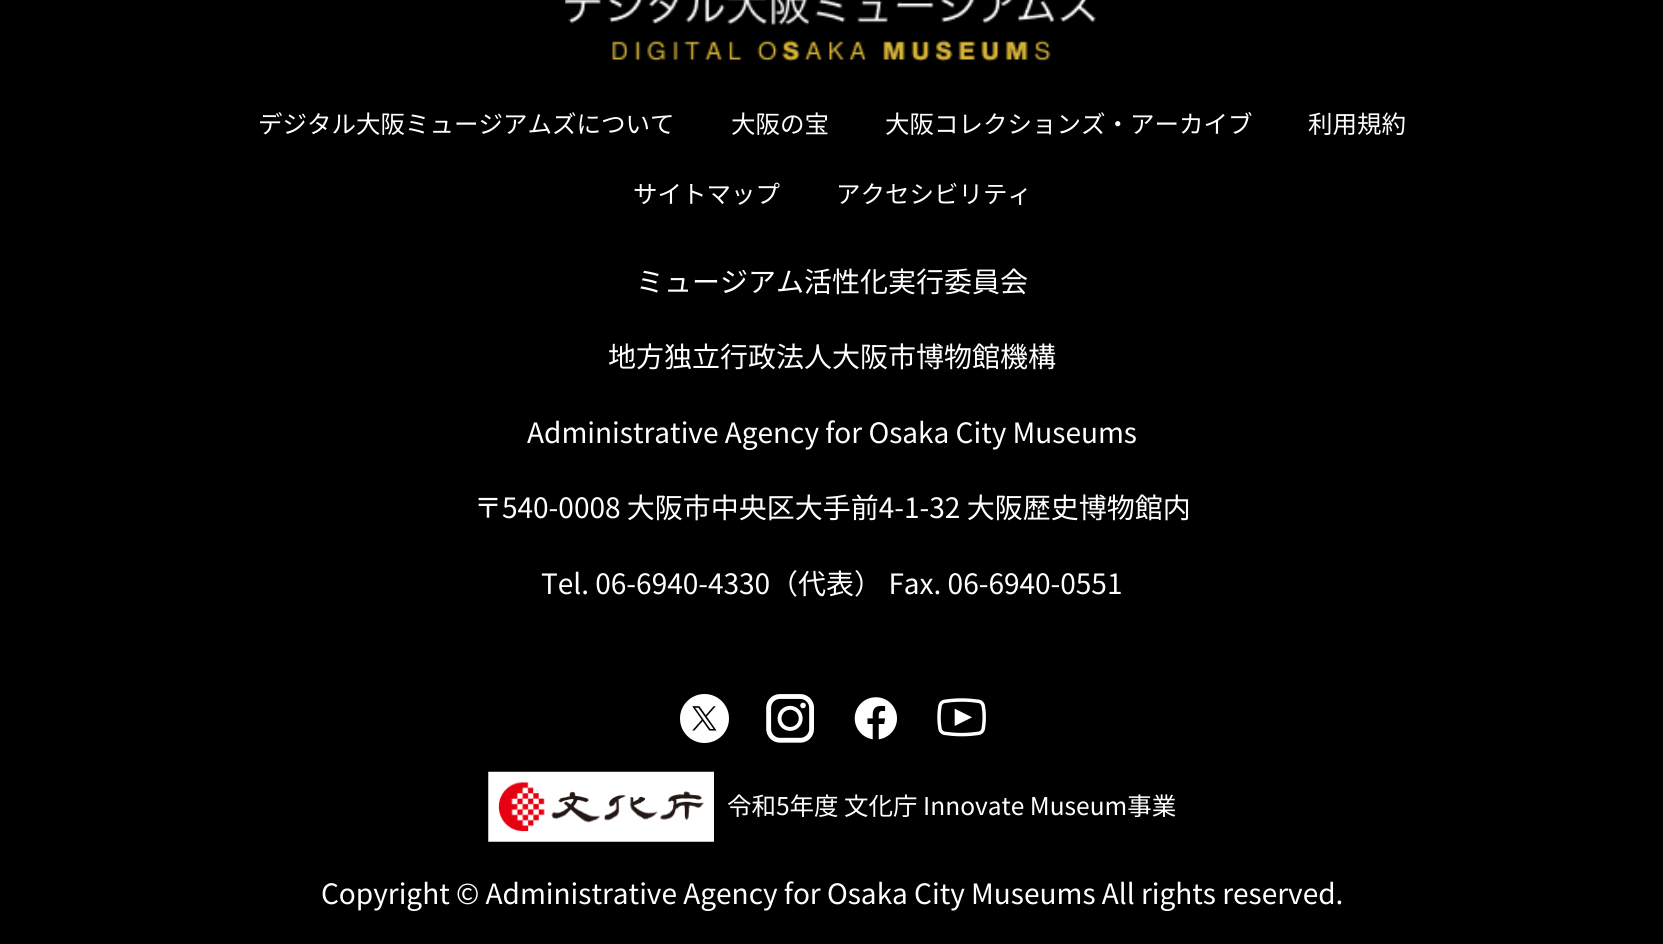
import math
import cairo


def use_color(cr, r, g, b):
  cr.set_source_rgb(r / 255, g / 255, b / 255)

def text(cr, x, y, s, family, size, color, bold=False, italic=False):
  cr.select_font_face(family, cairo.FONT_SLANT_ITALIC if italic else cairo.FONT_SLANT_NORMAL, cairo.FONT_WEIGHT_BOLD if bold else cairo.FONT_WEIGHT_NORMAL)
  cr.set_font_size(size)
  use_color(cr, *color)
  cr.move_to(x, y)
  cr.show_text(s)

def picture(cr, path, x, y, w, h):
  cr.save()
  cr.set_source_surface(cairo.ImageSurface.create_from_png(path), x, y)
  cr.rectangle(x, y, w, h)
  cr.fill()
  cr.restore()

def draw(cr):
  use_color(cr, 0, 0, 0)
  cr.paint()
  picture(cr, "img_01.png", 565, 0, 531, 62)
  picture(cr, "img_02.png", 680, 694, 49, 49)
  picture(cr, "img_03.png", 766, 694, 48, 49)
  picture(cr, "img_04.png", 854, 697, 43, 43)
  picture(cr, "img_05.png", 937, 698, 49, 39)
  picture(cr, "img_06.png", 488, 771, 226, 71)
  text(cr, 258, 133, "デジタル大阪ミュージアムズについて", "Noto Sans JP", 24.5, (255, 255, 255))
  text(cr, 731, 133, "大阪の宝", "Noto Sans JP", 24.5, (255, 255, 255))
  text(cr, 885, 133, "大阪コレクションズ・アーカイブ", "Noto Sans JP", 24.5, (255, 255, 255))
  text(cr, 1308, 133, "利用規約", "Noto Sans JP", 24.5, (255, 255, 255))
  text(cr, 633, 203, "サイトマップ", "Noto Sans JP", 24.5, (255, 255, 255))
  text(cr, 836, 203, "アクセシビリティ", "Noto Sans JP", 24.5, (255, 255, 255))
  text(cr, 636, 292, "ミュージアム活性化実行委員会", "Noto Sans JP", 28, (255, 255, 255))
  text(cr, 608, 367, "地方独立行政法人大阪市博物館機構", "Noto Sans JP", 28, (255, 255, 255))
  text(cr, 527, 443, "Administrative Agency for Osaka City Museums", "Noto Sans JP", 28, (255, 255, 255))
  text(cr, 474, 518, "〒540-0008 大阪市中央区大手前4-1-32 大阪歴史博物館内", "Noto Sans JP", 28, (255, 255, 255))
  text(cr, 541, 594, "Tel. 06-6940-4330（代表） Fax. 06-6940-0551", "Noto Sans JP", 28, (255, 255, 255))
  text(cr, 727, 815, "令和5年度 文化庁 Innovate Museum事業", "Noto Sans JP", 24.5, (255, 255, 255))
  text(cr, 321, 904, "Copyright © Administrative Agency for Osaka City Museums All rights reserved.", "Noto Sans JP", 28, (255, 255, 255))


surface = cairo.ImageSurface(cairo.FORMAT_RGB24, 1663, 944)
cr = cairo.Context(surface)
options = cairo.FontOptions()
options.set_hint_metrics(cairo.HINT_METRICS_OFF)
options.set_hint_style(cairo.HINT_STYLE_NONE)
cr.set_font_options(options)
cr.set_miter_limit(4)
draw(cr)
surface.write_to_png("out.png")
